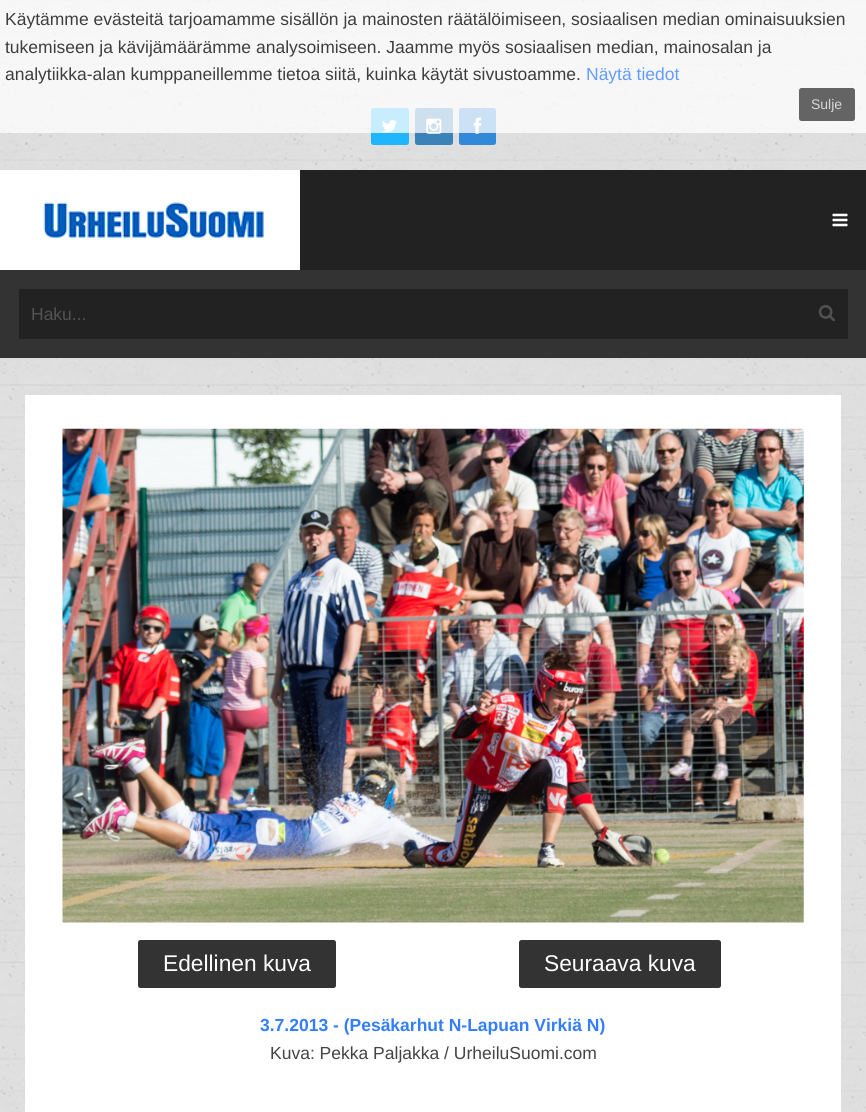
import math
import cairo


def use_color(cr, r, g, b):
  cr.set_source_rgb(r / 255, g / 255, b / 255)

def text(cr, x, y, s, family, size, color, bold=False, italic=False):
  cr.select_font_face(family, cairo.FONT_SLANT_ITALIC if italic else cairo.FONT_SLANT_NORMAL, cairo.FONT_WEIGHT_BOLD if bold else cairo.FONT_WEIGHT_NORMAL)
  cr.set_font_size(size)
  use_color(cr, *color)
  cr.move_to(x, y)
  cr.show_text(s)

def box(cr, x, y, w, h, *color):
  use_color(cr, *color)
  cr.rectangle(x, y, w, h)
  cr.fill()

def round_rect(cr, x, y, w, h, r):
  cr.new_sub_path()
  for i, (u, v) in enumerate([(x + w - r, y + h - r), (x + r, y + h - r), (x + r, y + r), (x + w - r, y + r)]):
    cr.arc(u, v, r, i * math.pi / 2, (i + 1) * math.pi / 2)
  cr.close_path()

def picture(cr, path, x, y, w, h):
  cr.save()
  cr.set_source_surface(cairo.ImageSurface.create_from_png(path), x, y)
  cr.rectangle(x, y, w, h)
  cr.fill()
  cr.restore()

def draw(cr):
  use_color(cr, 255, 255, 255)
  cr.paint()
  picture(cr, "img_01.png", 0, 0, 866, 1112)
  use_color(cr, 32, 182, 255)
  round_rect(cr, 371, 108, 38, 37, 2.5)
  cr.fill()
  picture(cr, "img_02.png", 381, 120, 16, 13)
  use_color(cr, 59, 130, 185)
  round_rect(cr, 415, 108, 38, 37, 2.5)
  cr.fill()
  picture(cr, "img_03.png", 426, 118, 16, 16)
  use_color(cr, 50, 137, 218)
  round_rect(cr, 459, 108, 37, 37, 2.5)
  cr.fill()
  picture(cr, "img_04.png", 473, 117, 9, 17)
  cr.set_source_rgba(1, 1, 1, 0.75)
  cr.rectangle(0, 0, 866, 133)
  cr.fill()
  cr.set_source_rgba(0.2, 0.2, 0.2, 0.75)
  round_rect(cr, 799, 88, 56, 33, 2.5)
  cr.fill()
  box(cr, 0, 270, 866, 88, 51, 51, 51)
  picture(cr, "img_05.png", 0, 170, 300, 100)
  box(cr, 300, 170, 566, 100, 34, 34, 34)
  picture(cr, "img_06.png", 832, 213, 16, 14)
  box(cr, 19, 289, 829, 50, 34, 34, 34)
  picture(cr, "img_07.png", 818, 305, 17, 17)
  box(cr, 25, 395, 816, 717, 255, 255, 255)
  picture(cr, "img_08.png", 62, 428, 742, 495)
  use_color(cr, 51, 51, 51)
  round_rect(cr, 138, 940, 198, 48, 2.5)
  cr.fill()
  round_rect(cr, 519, 940, 202, 48, 2.5)
  cr.fill()
  text(cr, 5, 25, "Käytämme evästeitä tarjoamamme sisällön ja mainosten räätälöimiseen, sosiaalisen median ominaisuuksien", "Liberation Sans", 17.5, (62, 62, 62))
  text(cr, 5, 53, "tukemiseen ja kävijämäärämme analysoimiseen. Jaamme myös sosiaalisen median, mainosalan ja", "Liberation Sans", 17.5, (62, 62, 62))
  text(cr, 5, 80, "analytiikka-alan kumppaneillemme tietoa siitä, kuinka käytät sivustoamme.", "Liberation Sans", 17.5, (62, 62, 62))
  text(cr, 586, 80, "Näytä tiedot", "Liberation Sans", 17.5, (99, 156, 251))
  text(cr, 811, 109, "Sulje", "Liberation Sans", 14, (216, 216, 216))
  text(cr, 31, 320, "Haku...", "Liberation Sans", 17.5, (82, 82, 82))
  text(cr, 163, 971, "Edellinen kuva", "Liberation Sans", 22.75, (255, 255, 255))
  text(cr, 544, 971, "Seuraava kuva", "Liberation Sans", 22.75, (255, 255, 255))
  text(cr, 260, 1031, "3.7.2013 - (Pesäkarhut N-Lapuan Virkiä N)", "Liberation Sans", 17.5, (50, 126, 253), bold=True)
  text(cr, 270, 1059, "Kuva: Pekka Paljakka / UrheiluSuomi.com", "Liberation Sans", 17.5, (68, 68, 68))


surface = cairo.ImageSurface(cairo.FORMAT_RGB24, 866, 1112)
cr = cairo.Context(surface)
options = cairo.FontOptions()
options.set_hint_metrics(cairo.HINT_METRICS_OFF)
options.set_hint_style(cairo.HINT_STYLE_NONE)
cr.set_font_options(options)
cr.set_miter_limit(4)
draw(cr)
surface.write_to_png("out.png")
